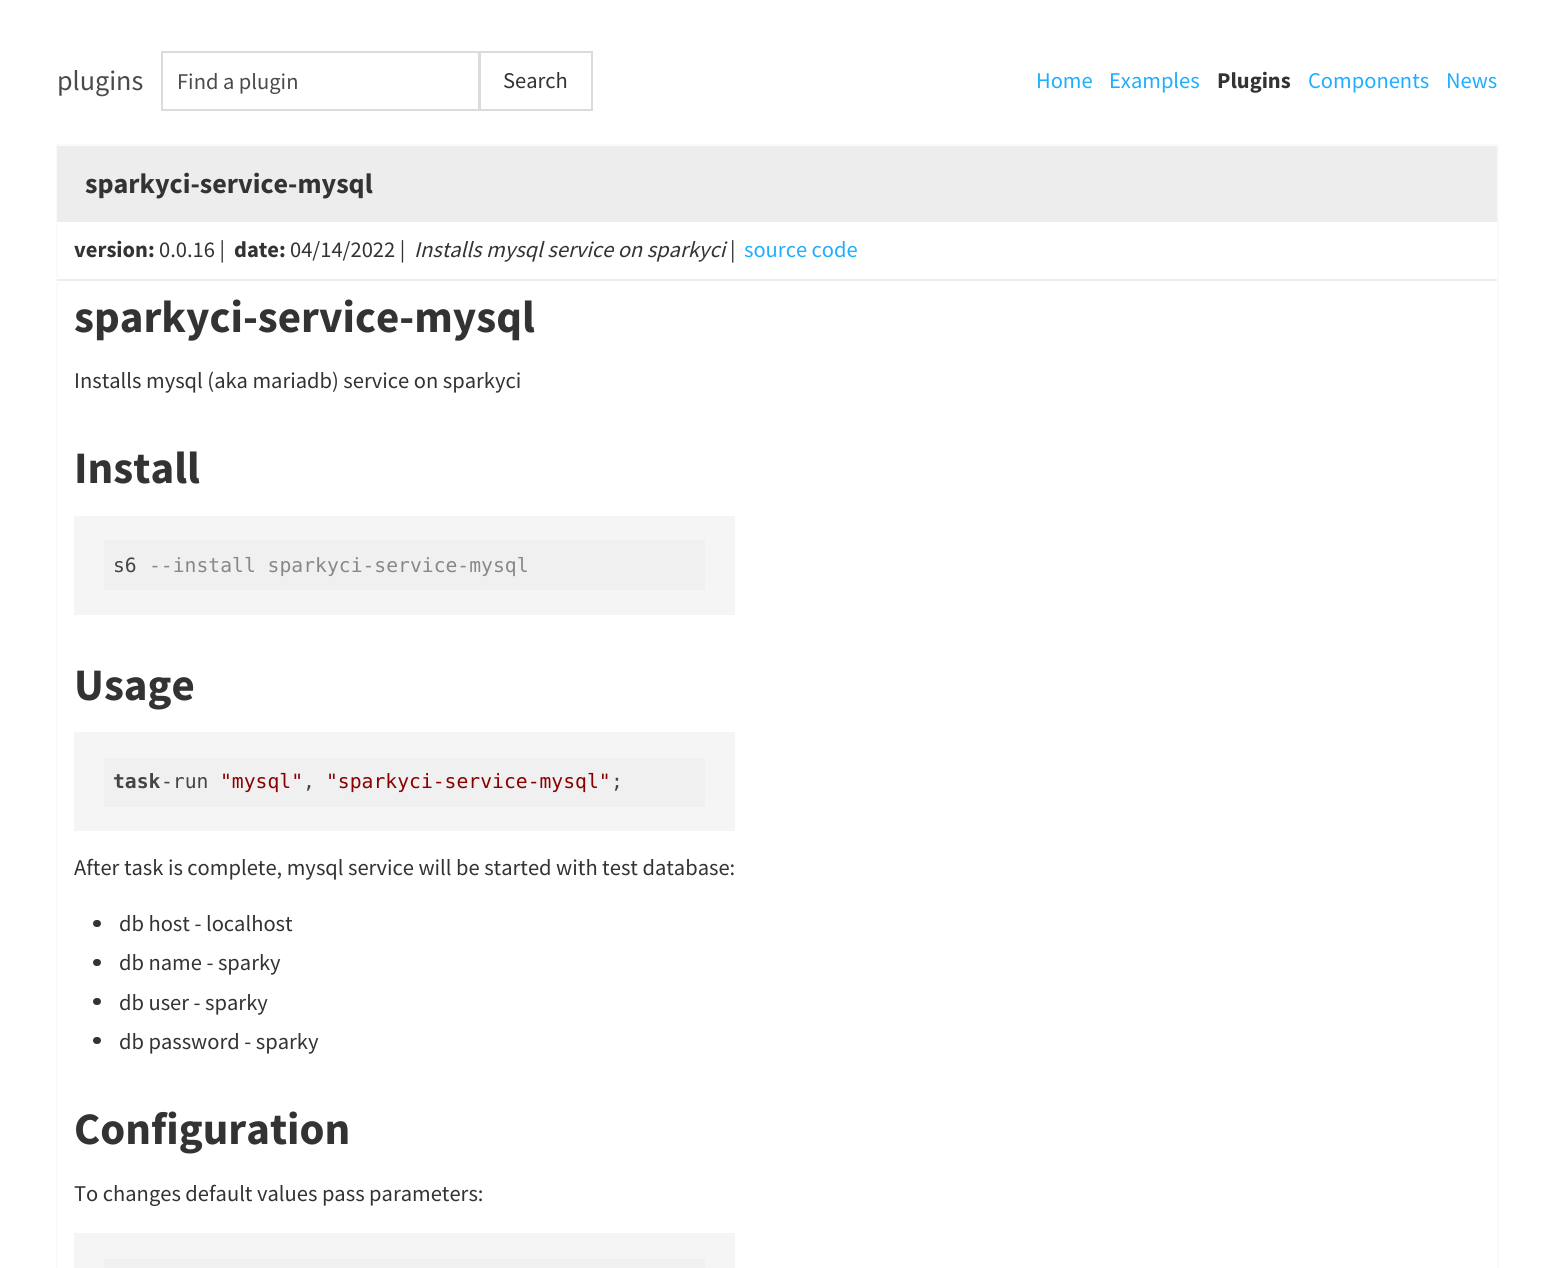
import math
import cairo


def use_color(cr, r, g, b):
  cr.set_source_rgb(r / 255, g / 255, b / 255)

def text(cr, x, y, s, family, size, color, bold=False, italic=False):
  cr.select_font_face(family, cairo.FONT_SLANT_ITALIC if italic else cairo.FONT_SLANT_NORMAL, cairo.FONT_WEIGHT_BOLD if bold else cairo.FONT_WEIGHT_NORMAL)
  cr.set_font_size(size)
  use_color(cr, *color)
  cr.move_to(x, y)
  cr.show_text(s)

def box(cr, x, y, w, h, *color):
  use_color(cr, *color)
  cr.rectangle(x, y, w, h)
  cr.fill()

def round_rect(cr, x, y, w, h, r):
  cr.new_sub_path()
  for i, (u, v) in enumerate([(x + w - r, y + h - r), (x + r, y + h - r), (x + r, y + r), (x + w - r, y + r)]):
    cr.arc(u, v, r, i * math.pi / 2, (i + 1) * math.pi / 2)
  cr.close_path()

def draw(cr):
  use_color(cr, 255, 255, 255)
  cr.paint()
  cr.rectangle(162, 52, 317, 58)
  use_color(cr, 219, 219, 219)
  cr.stroke()
  cr.rectangle(480, 52, 112, 58)
  cr.stroke()
  cr.rectangle(57, 145, 1441, 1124)
  use_color(cr, 250, 250, 250)
  cr.stroke()
  box(cr, 57, 146, 1440, 76, 237, 237, 237)
  box(cr, 57, 279, 1440, 2, 237, 237, 237)
  box(cr, 74, 516, 661, 99, 245, 245, 245)
  box(cr, 104, 540, 601, 50, 240, 240, 240)
  box(cr, 74, 732, 661, 99, 245, 245, 245)
  box(cr, 104, 758, 601, 49, 240, 240, 240)
  use_color(cr, 51, 51, 51)
  round_rect(cr, 93, 920, 8, 7, 3.5)
  cr.fill()
  round_rect(cr, 93, 959, 8, 7, 3.5)
  cr.fill()
  round_rect(cr, 93, 998, 8, 7, 3.5)
  cr.fill()
  round_rect(cr, 93, 1037, 8, 7, 3.5)
  cr.fill()
  box(cr, 74, 1233, 661, 35, 245, 245, 245)
  box(cr, 104, 1259, 601, 9, 240, 240, 240)
  text(cr, 57, 90, "plugins", "Source Sans Pro", 28.1, (74, 74, 74))
  text(cr, 177, 89, "Find a plugin", "Source Sans Pro", 22.5, (74, 74, 74))
  text(cr, 503, 88, "Search", "Source Sans Pro", 22.5, (51, 51, 51))
  text(cr, 1036, 88, "Home", "Source Sans Pro", 22.5, (31, 174, 255))
  text(cr, 1109, 88, "Examples", "Source Sans Pro", 22.5, (31, 174, 255))
  text(cr, 1217, 88, "Plugins", "Source Sans Pro", 22.5, (51, 51, 51), bold=True)
  text(cr, 1308, 88, "Components", "Source Sans Pro", 22.5, (31, 174, 255))
  text(cr, 1446, 88, "News", "Source Sans Pro", 22.5, (31, 174, 255))
  text(cr, 85, 193, "sparkyci-service-mysql", "Source Sans Pro", 28.1, (51, 51, 51), bold=True)
  text(cr, 74, 257, "version:", "Source Sans Pro", 22.5, (51, 51, 51), bold=True)
  text(cr, 159, 257, "0.0.16 |", "Source Sans Pro", 22.5, (51, 51, 51))
  text(cr, 234, 257, "date:", "Source Sans Pro", 22.5, (51, 51, 51), bold=True)
  text(cr, 290, 257, "04/14/2022 |", "Source Sans Pro", 22.5, (51, 51, 51))
  text(cr, 414, 257, "Installs mysql service on sparkyci", "Source Sans Pro", 22.5, (51, 51, 51), italic=True)
  text(cr, 730, 257, "|", "Source Sans Pro", 22.5, (51, 51, 51))
  text(cr, 744, 257, "source code", "Source Sans Pro", 22.5, (31, 174, 255))
  text(cr, 74, 332, "sparkyci-service-mysql", "Source Sans Pro", 45, (51, 51, 51), bold=True)
  text(cr, 74, 388, "Installs mysql (aka mariadb) service on sparkyci", "Source Sans Pro", 22.5, (51, 51, 51))
  text(cr, 74, 483, "Install", "Source Sans Pro", 45, (51, 51, 51), bold=True)
  text(cr, 113, 572, "s6", "DejaVu Sans Mono", 19.7, (68, 68, 68))
  text(cr, 149, 572, "--install sparkyci-service-mysql", "DejaVu Sans Mono", 19.7, (136, 136, 136))
  text(cr, 74, 700, "Usage", "Source Sans Pro", 45, (51, 51, 51), bold=True)
  text(cr, 113, 788, "task", "DejaVu Sans Mono", 19.7, (68, 68, 68), bold=True)
  text(cr, 161, 788, "-run", "DejaVu Sans Mono", 19.7, (68, 68, 68))
  text(cr, 220, 788, "\"mysql\"", "DejaVu Sans Mono", 19.7, (136, 0, 0))
  text(cr, 303, 788, ",", "DejaVu Sans Mono", 19.7, (68, 68, 68))
  text(cr, 326, 788, "\"sparkyci-service-mysql\"", "DejaVu Sans Mono", 19.7, (136, 0, 0))
  text(cr, 611, 788, ";", "DejaVu Sans Mono", 19.7, (68, 68, 68))
  text(cr, 74, 875, "After task is complete, mysql service will be started with test database:", "Source Sans Pro", 22.5, (51, 51, 51))
  text(cr, 119, 931, "db host - localhost", "Source Sans Pro", 22.5, (51, 51, 51))
  text(cr, 119, 970, "db name - sparky", "Source Sans Pro", 22.5, (51, 51, 51))
  text(cr, 119, 1010, "db user - sparky", "Source Sans Pro", 22.5, (51, 51, 51))
  text(cr, 119, 1049, "db password - sparky", "Source Sans Pro", 22.5, (51, 51, 51))
  text(cr, 74, 1144, "Configuration", "Source Sans Pro", 45, (51, 51, 51), bold=True)
  text(cr, 74, 1201, "To changes default values pass parameters:", "Source Sans Pro", 22.5, (51, 51, 51))


surface = cairo.ImageSurface(cairo.FORMAT_RGB24, 1554, 1268)
cr = cairo.Context(surface)
options = cairo.FontOptions()
options.set_hint_metrics(cairo.HINT_METRICS_OFF)
options.set_hint_style(cairo.HINT_STYLE_NONE)
cr.set_font_options(options)
cr.set_miter_limit(4)
draw(cr)
surface.write_to_png("out.png")
